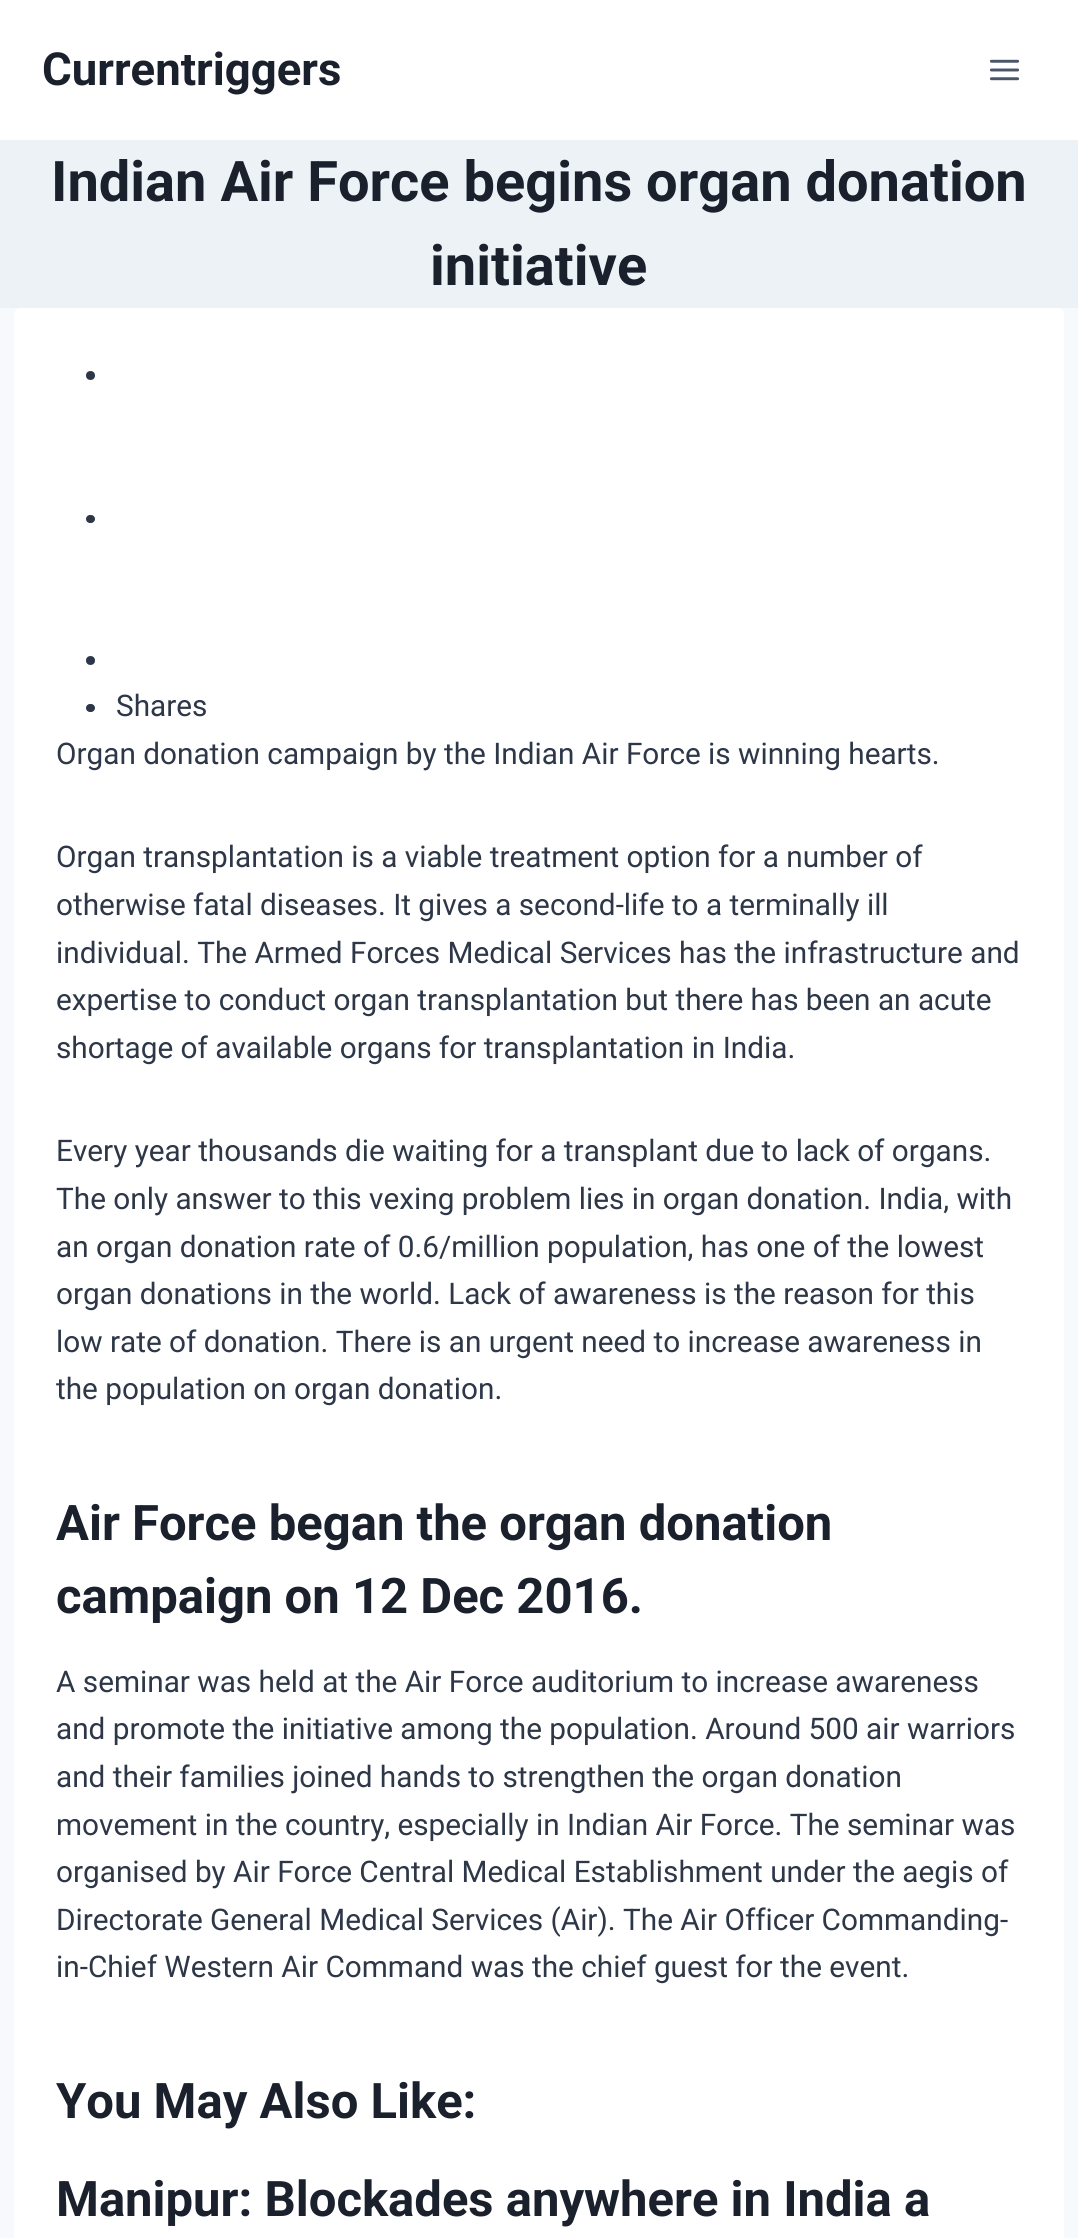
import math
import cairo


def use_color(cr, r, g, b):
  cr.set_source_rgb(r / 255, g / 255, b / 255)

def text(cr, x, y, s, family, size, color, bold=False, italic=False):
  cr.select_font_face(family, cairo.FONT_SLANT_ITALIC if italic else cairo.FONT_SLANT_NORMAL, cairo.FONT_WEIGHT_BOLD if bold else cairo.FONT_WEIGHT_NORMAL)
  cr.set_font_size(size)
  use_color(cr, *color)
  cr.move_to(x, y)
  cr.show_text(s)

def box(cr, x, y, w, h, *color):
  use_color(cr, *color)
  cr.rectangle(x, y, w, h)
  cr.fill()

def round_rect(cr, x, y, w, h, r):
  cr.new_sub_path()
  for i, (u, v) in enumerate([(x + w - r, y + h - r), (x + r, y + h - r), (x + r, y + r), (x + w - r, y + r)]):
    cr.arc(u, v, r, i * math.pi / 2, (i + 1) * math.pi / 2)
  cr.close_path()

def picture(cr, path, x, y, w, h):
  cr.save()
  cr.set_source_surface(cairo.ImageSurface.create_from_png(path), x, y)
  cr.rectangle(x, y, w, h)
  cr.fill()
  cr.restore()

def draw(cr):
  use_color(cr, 247, 250, 252)
  cr.paint()
  box(cr, 0, 0, 1078, 140, 255, 255, 255)
  picture(cr, "img_01.png", 989, 59, 31, 22)
  box(cr, 0, 140, 1078, 168, 237, 242, 247)
  use_color(cr, 255, 255, 255)
  round_rect(cr, 14, 308, 1050, 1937, 7)
  cr.fill()
  use_color(cr, 45, 55, 72)
  cr.arc(90.5, 375.5, 4.5, 0, 2 * math.pi)
  cr.fill()
  round_rect(cr, 86, 515, 9, 8, 4)
  cr.fill()
  cr.arc(90.5, 660.5, 4.5, 0, 2 * math.pi)
  cr.fill()
  round_rect(cr, 86, 704, 9, 8, 4)
  cr.fill()
  text(cr, 42, 85, "Currentriggers", "Roboto", 45.5, (26, 32, 44), bold=True)
  text(cr, 51, 201, "Indian Air Force begins organ donation", "Roboto", 56, (26, 32, 44), bold=True)
  text(cr, 430, 285, "initiative", "Roboto", 56, (26, 32, 44), bold=True)
  text(cr, 116, 716, "Shares", "Roboto", 29.75, (45, 55, 72))
  text(cr, 56, 764, "Organ donation campaign by the Indian Air Force is winning hearts.", "Roboto", 29.75, (45, 55, 72))
  text(cr, 56, 867, "Organ transplantation is a viable treatment option for a number of", "Roboto", 29.75, (45, 55, 72))
  text(cr, 56, 915, "otherwise fatal diseases. It gives a second-life to a terminally ill", "Roboto", 29.75, (45, 55, 72))
  text(cr, 56, 963, "individual. The Armed Forces Medical Services has the infrastructure and", "Roboto", 29.75, (45, 55, 72))
  text(cr, 56, 1010, "expertise to conduct organ transplantation but there has been an acute", "Roboto", 29.75, (45, 55, 72))
  text(cr, 56, 1058, "shortage of available organs for transplantation in India.", "Roboto", 29.75, (45, 55, 72))
  text(cr, 56, 1161, "Every year thousands die waiting for a transplant due to lack of organs.", "Roboto", 29.75, (45, 55, 72))
  text(cr, 56, 1209, "The only answer to this vexing problem lies in organ donation. India, with", "Roboto", 29.75, (45, 55, 72))
  text(cr, 56, 1257, "an organ donation rate of 0.6/million population, has one of the lowest", "Roboto", 29.75, (45, 55, 72))
  text(cr, 56, 1304, "organ donations in the world. Lack of awareness is the reason for this", "Roboto", 29.75, (45, 55, 72))
  text(cr, 56, 1352, "low rate of donation. There is an urgent need to increase awareness in", "Roboto", 29.75, (45, 55, 72))
  text(cr, 56, 1399, "the population on organ donation.", "Roboto", 29.75, (45, 55, 72))
  text(cr, 56, 1540, "Air Force began the organ donation", "Roboto", 49, (26, 32, 44), bold=True)
  text(cr, 56, 1613, "campaign on 12 Dec 2016.", "Roboto", 49, (26, 32, 44), bold=True)
  text(cr, 56, 1692, "A seminar was held at the Air Force auditorium to increase awareness", "Roboto", 29.75, (45, 55, 72))
  text(cr, 56, 1739, "and promote the initiative among the population. Around 500 air warriors", "Roboto", 29.75, (45, 55, 72))
  text(cr, 56, 1787, "and their families joined hands to strengthen the organ donation", "Roboto", 29.75, (45, 55, 72))
  text(cr, 56, 1835, "movement in the country, especially in Indian Air Force. The seminar was", "Roboto", 29.75, (45, 55, 72))
  text(cr, 56, 1882, "organised by Air Force Central Medical Establishment under the aegis of", "Roboto", 29.75, (45, 55, 72))
  text(cr, 56, 1930, "Directorate General Medical Services (Air). The Air Officer Commanding-", "Roboto", 29.75, (45, 55, 72))
  text(cr, 56, 1977, "in-Chief Western Air Command was the chief guest for the event.", "Roboto", 29.75, (45, 55, 72))
  text(cr, 56, 2118, "You May Also Like:", "Roboto", 49, (26, 32, 44), bold=True)
  text(cr, 56, 2216, "Manipur: Blockades anywhere in India a", "Roboto", 49, (26, 32, 44), bold=True)


surface = cairo.ImageSurface(cairo.FORMAT_RGB24, 1078, 2238)
cr = cairo.Context(surface)
options = cairo.FontOptions()
options.set_hint_metrics(cairo.HINT_METRICS_OFF)
options.set_hint_style(cairo.HINT_STYLE_NONE)
cr.set_font_options(options)
cr.set_miter_limit(4)
draw(cr)
surface.write_to_png("out.png")
